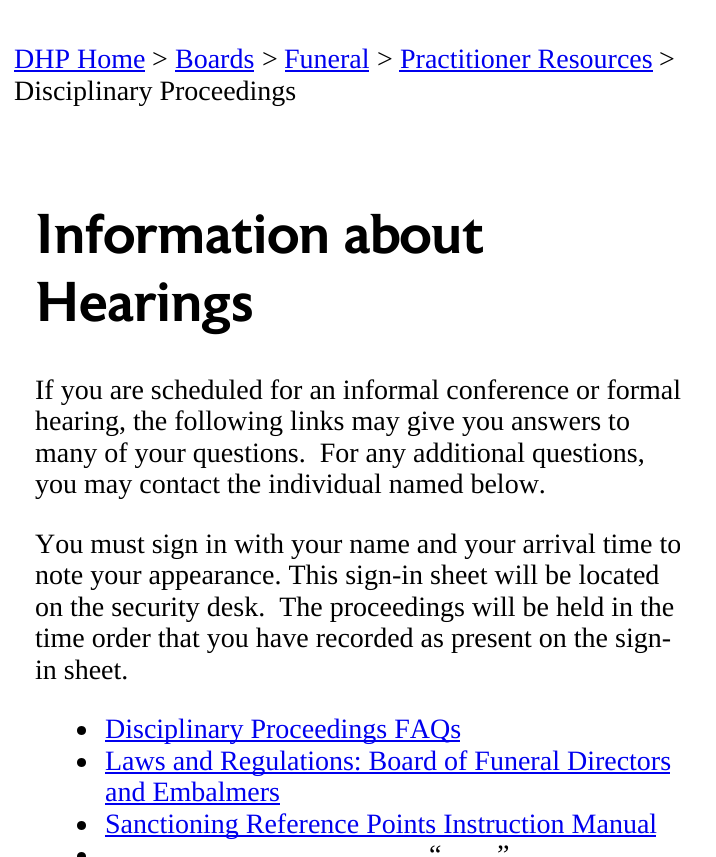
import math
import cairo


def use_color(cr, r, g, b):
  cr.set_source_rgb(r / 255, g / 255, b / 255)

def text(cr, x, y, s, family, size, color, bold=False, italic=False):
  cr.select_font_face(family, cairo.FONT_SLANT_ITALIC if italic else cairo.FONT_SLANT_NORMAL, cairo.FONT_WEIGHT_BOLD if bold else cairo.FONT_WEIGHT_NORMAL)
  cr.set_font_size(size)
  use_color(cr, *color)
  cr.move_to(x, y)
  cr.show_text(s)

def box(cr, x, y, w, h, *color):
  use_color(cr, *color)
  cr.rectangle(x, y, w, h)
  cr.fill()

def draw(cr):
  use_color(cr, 255, 255, 255)
  cr.paint()
  box(cr, 14, 70, 131, 2, 0, 0, 238)
  box(cr, 175, 70, 79, 2, 0, 0, 238)
  box(cr, 285, 70, 84, 2, 0, 0, 238)
  box(cr, 399, 70, 254, 2, 0, 0, 238)
  use_color(cr, 0, 0, 0)
  cr.arc(81.5, 730.5, 4.5, 0, 2 * math.pi)
  cr.fill()
  box(cr, 105, 740, 355, 2, 0, 0, 238)
  use_color(cr, 0, 0, 0)
  cr.arc(81.5, 762.5, 4.5, 0, 2 * math.pi)
  cr.fill()
  box(cr, 105, 772, 565, 2, 0, 0, 238)
  box(cr, 105, 803, 175, 2, 0, 0, 238)
  use_color(cr, 0, 0, 0)
  cr.arc(81.5, 825.5, 4.5, 0, 2 * math.pi)
  cr.fill()
  box(cr, 105, 835, 551, 2, 0, 0, 238)
  use_color(cr, 0, 0, 0)
  cr.arc(81.5, 856.5, 4.5, 0, 2 * math.pi)
  cr.fill()
  text(cr, 14, 68, "DHP Home", "Liberation Serif", 28, (0, 0, 238))
  text(cr, 152, 68, ">", "Liberation Serif", 28, (0, 0, 0))
  text(cr, 175, 68, "Boards", "Liberation Serif", 28, (0, 0, 238))
  text(cr, 262, 68, ">", "Liberation Serif", 28, (0, 0, 0))
  text(cr, 284, 68, "Funeral", "Liberation Serif", 28, (0, 0, 238))
  text(cr, 377, 68, ">", "Liberation Serif", 28, (0, 0, 0))
  text(cr, 400, 68, "Practitioner Resources", "Liberation Serif", 28, (0, 0, 238))
  text(cr, 659, 68, ">", "Liberation Serif", 28, (0, 0, 0))
  text(cr, 14, 100, "Disciplinary Proceedings", "Liberation Serif", 28, (0, 0, 0))
  text(cr, 35, 253, "Information about", "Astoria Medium", 56, (0, 0, 0))
  text(cr, 35, 321, "Hearings", "Astoria Medium", 56, (0, 0, 0))
  text(cr, 35, 399, "If you are scheduled for an informal conference or formal", "Liberation Serif", 28, (0, 0, 0))
  text(cr, 35, 430, "hearing, the following links may give you answers to", "Liberation Serif", 28, (0, 0, 0))
  text(cr, 35, 462, "many of your questions.  For any additional questions,", "Liberation Serif", 28, (0, 0, 0))
  text(cr, 35, 493, "you may contact the individual named below.", "Liberation Serif", 28, (0, 0, 0))
  text(cr, 35, 553, "You must sign in with your name and your arrival time to", "Liberation Serif", 28, (0, 0, 0))
  text(cr, 35, 584, "note your appearance. This sign-in sheet will be located", "Liberation Serif", 28, (0, 0, 0))
  text(cr, 35, 616, "on the security desk.  The proceedings will be held in the", "Liberation Serif", 28, (0, 0, 0))
  text(cr, 35, 647, "time order that you have recorded as present on the sign-", "Liberation Serif", 28, (0, 0, 0))
  text(cr, 35, 679, "in sheet.", "Liberation Serif", 28, (0, 0, 0))
  text(cr, 105, 738, "Disciplinary Proceedings FAQs", "Liberation Serif", 28, (0, 0, 238))
  text(cr, 105, 770, "Laws and Regulations: Board of Funeral Directors", "Liberation Serif", 28, (0, 0, 238))
  text(cr, 105, 801, "and Embalmers", "Liberation Serif", 28, (0, 0, 238))
  text(cr, 105, 833, "Sanctioning Reference Points Instruction Manual", "Liberation Serif", 28, (0, 0, 238))
  text(cr, 429, 864, "“", "Liberation Serif", 28, (0, 0, 0))
  text(cr, 497, 864, "”", "Liberation Serif", 28, (0, 0, 0))


surface = cairo.ImageSurface(cairo.FORMAT_RGB24, 716, 857)
cr = cairo.Context(surface)
options = cairo.FontOptions()
options.set_hint_metrics(cairo.HINT_METRICS_OFF)
options.set_hint_style(cairo.HINT_STYLE_NONE)
cr.set_font_options(options)
cr.set_miter_limit(4)
draw(cr)
surface.write_to_png("out.png")
